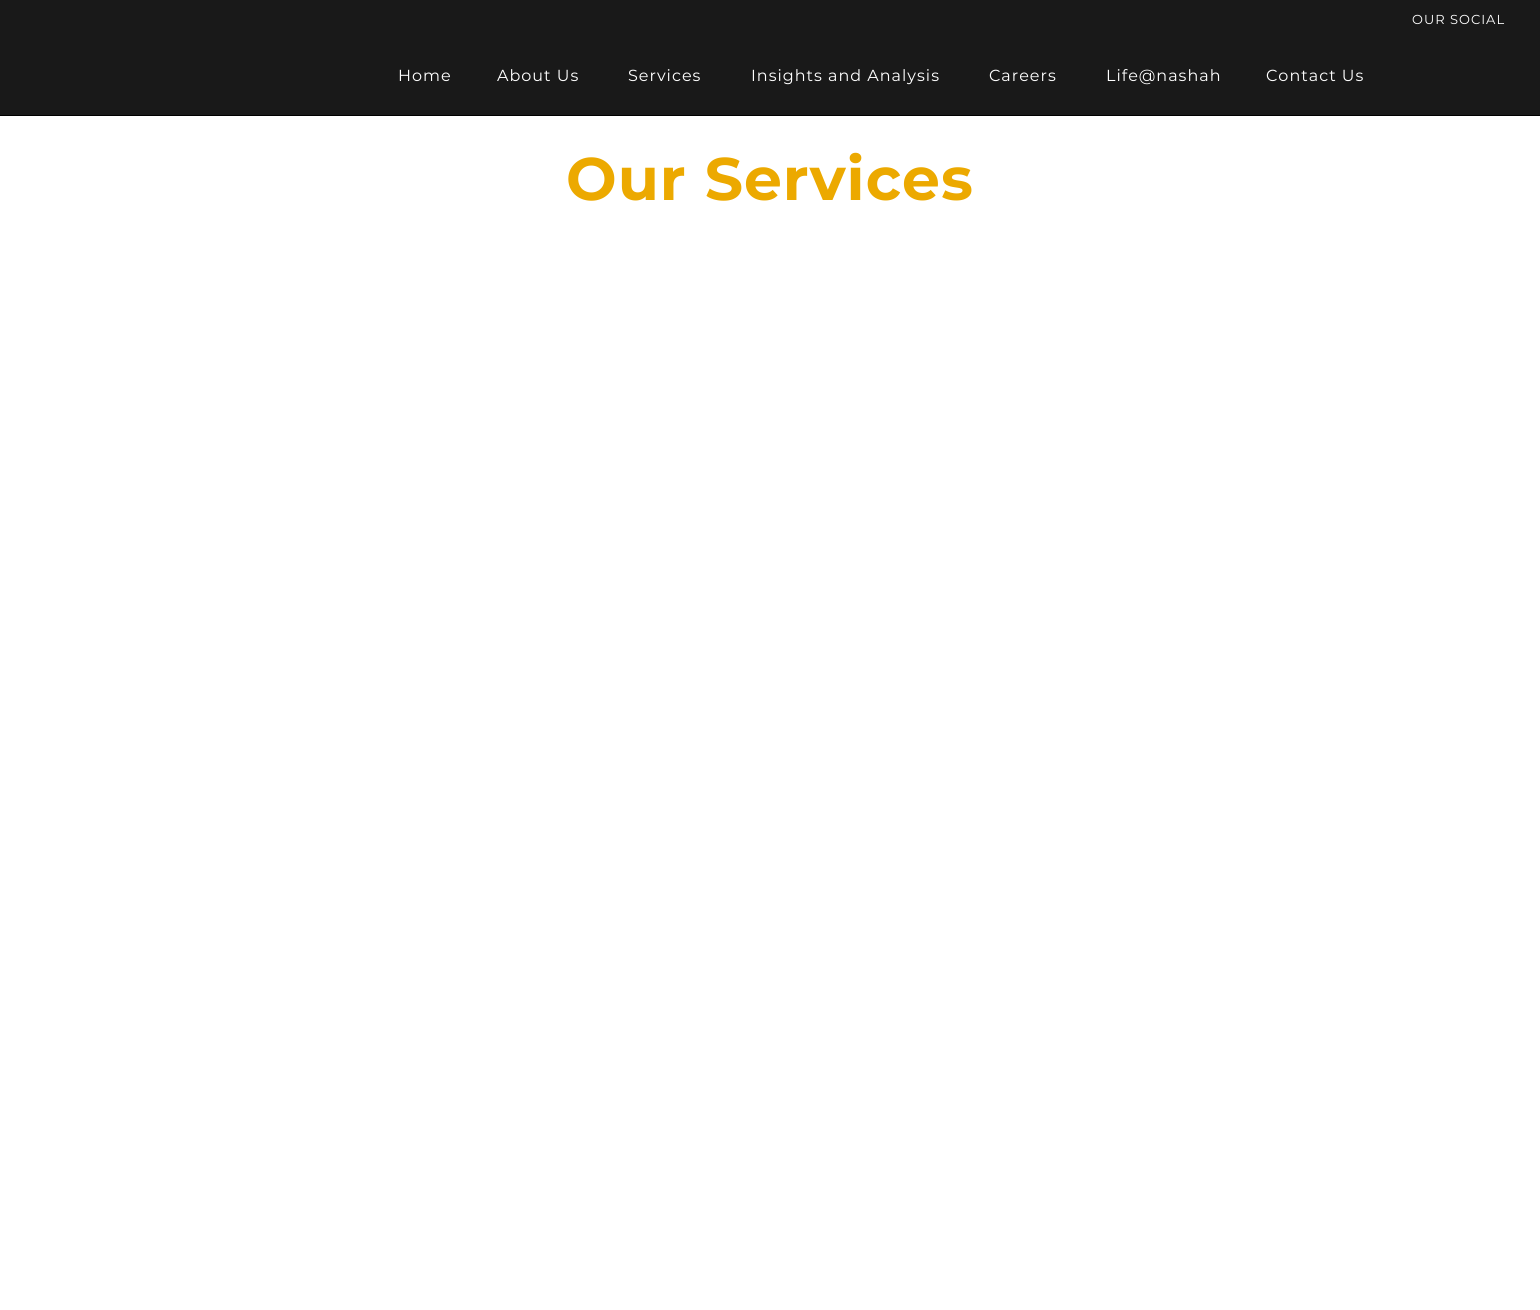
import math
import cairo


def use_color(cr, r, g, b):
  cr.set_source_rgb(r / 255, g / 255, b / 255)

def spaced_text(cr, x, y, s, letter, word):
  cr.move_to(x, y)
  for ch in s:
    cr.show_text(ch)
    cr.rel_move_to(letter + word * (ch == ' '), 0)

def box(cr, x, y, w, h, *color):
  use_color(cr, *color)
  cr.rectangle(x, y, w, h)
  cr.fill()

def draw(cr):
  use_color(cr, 255, 255, 255)
  cr.paint()
  box(cr, 0, 0, 1540, 115, 25, 25, 25)
  box(cr, 0, 115, 1540, 1, 0, 0, 0)
  cr.select_font_face("Montserrat")
  cr.set_font_size(13)
  use_color(cr, 255, 255, 255)
  spaced_text(cr, 1412, 24, "OUR SOCIAL", 1, 0)
  cr.set_font_size(16)
  spaced_text(cr, 398, 81, "Home", 1, 0)
  spaced_text(cr, 497, 81, "About Us", 1, 0)
  spaced_text(cr, 628, 81, "Services", 1, 0)
  spaced_text(cr, 751, 81, "Insights and Analysis", 1, 0)
  spaced_text(cr, 989, 81, "Careers", 1, 0)
  spaced_text(cr, 1106, 81, "Life@nashah", 1, 0)
  spaced_text(cr, 1266, 81, "Contact Us", 1, 0)
  cr.select_font_face("Montserrat", cairo.FONT_SLANT_NORMAL, cairo.FONT_WEIGHT_BOLD)
  cr.set_font_size(60)
  use_color(cr, 236, 169, 0)
  spaced_text(cr, 566, 200, "Our Services", 1, 0)


surface = cairo.ImageSurface(cairo.FORMAT_RGB24, 1540, 1310)
cr = cairo.Context(surface)
options = cairo.FontOptions()
options.set_hint_metrics(cairo.HINT_METRICS_OFF)
options.set_hint_style(cairo.HINT_STYLE_NONE)
cr.set_font_options(options)
cr.set_miter_limit(4)
draw(cr)
surface.write_to_png("out.png")
